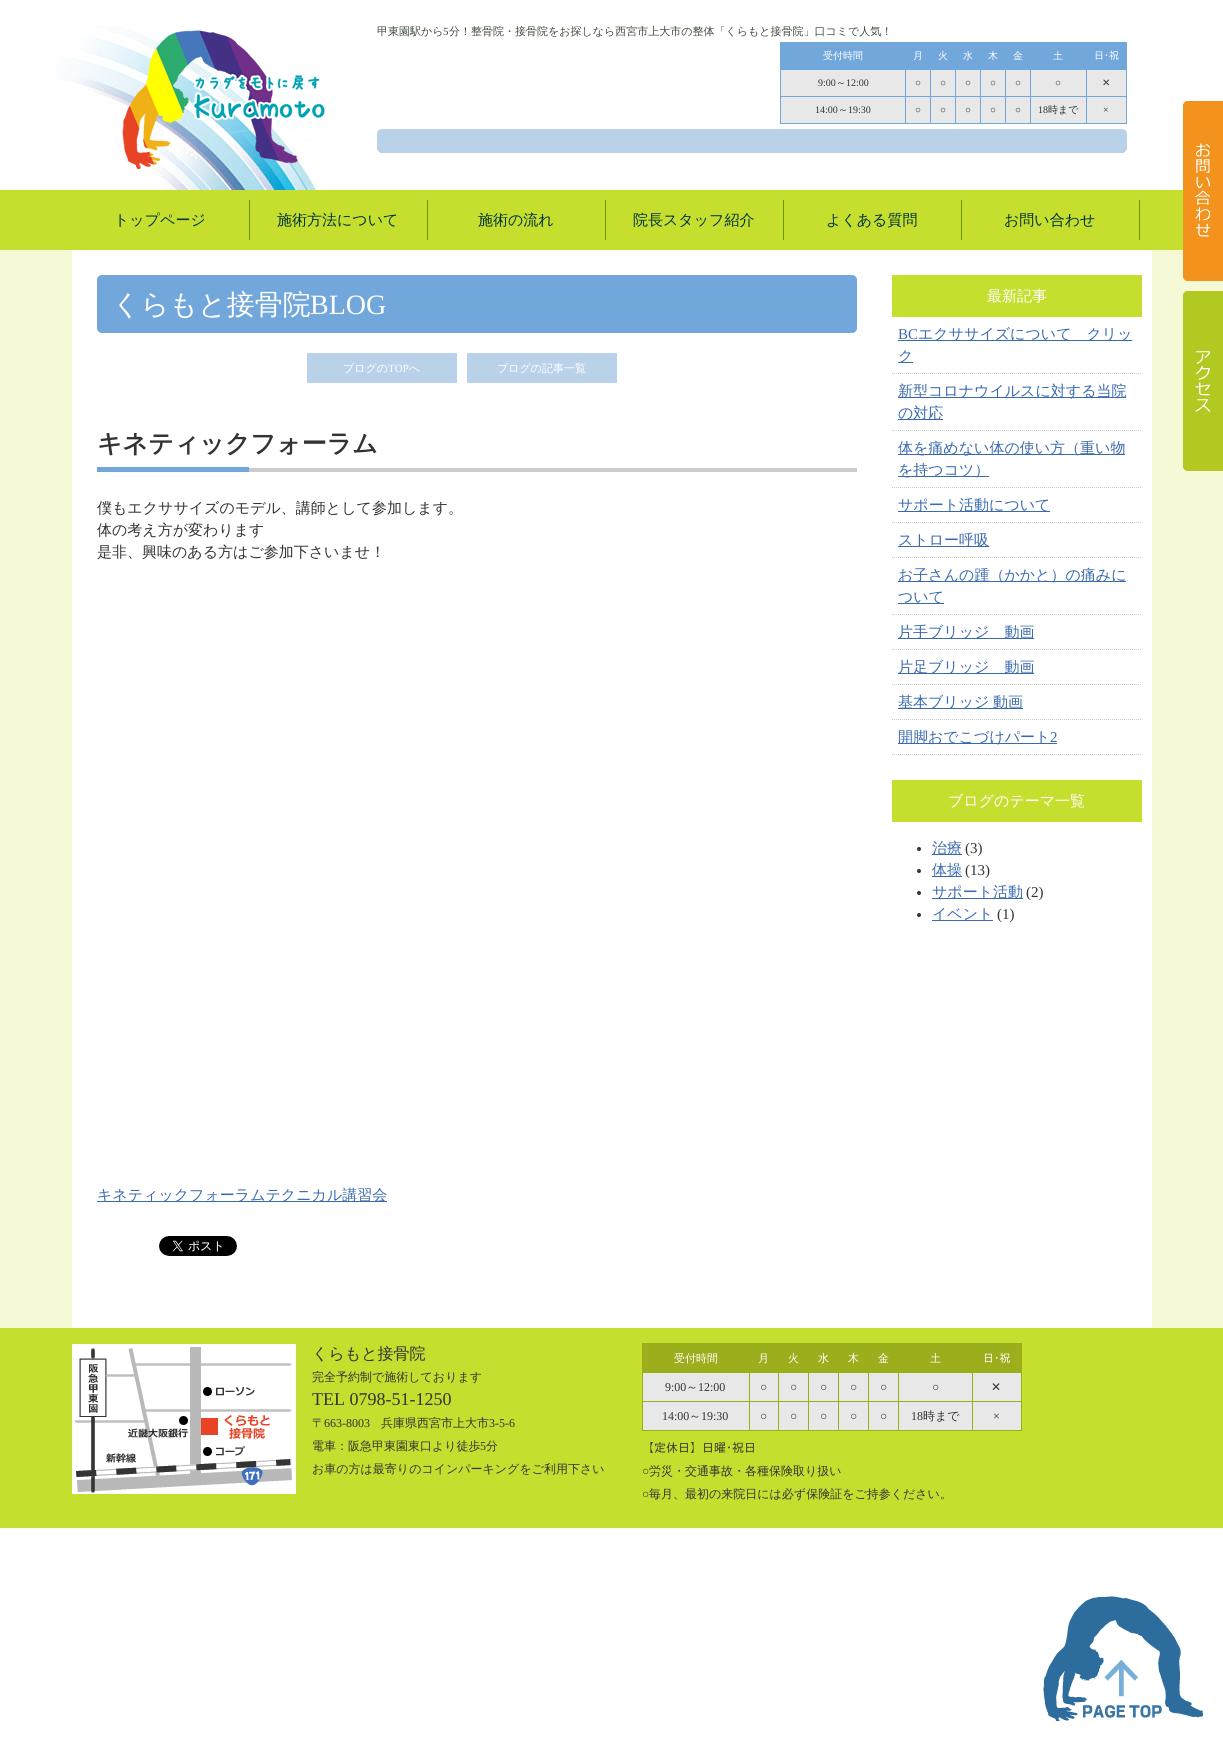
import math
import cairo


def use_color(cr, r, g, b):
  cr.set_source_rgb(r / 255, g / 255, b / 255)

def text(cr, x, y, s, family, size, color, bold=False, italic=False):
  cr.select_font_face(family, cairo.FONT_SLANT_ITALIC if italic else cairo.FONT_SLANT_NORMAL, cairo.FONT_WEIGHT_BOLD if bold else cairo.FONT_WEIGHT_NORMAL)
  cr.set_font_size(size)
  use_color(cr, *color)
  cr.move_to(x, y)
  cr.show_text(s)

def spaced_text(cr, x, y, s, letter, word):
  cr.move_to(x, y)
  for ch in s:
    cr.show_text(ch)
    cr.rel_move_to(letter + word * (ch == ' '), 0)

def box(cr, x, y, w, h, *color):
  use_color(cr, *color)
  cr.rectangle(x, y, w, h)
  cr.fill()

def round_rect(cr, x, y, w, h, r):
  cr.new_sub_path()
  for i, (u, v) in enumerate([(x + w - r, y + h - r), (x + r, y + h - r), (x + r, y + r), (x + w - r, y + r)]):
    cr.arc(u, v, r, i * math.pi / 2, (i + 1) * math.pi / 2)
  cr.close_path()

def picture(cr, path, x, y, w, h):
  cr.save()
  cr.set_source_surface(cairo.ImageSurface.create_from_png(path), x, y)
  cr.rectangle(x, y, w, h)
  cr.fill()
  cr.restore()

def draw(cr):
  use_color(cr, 255, 255, 255)
  cr.paint()
  picture(cr, "img_01.png", 56, 26, 280, 164)
  picture(cr, "img_02.png", 122, 30, 203, 139)
  box(cr, 781, 43, 125, 26, 114, 167, 220)
  box(cr, 780, 42, 347, 1, 114, 167, 220)
  box(cr, 1086, 96, 41, 1, 114, 167, 220)
  box(cr, 1126, 96, 1, 28, 114, 167, 220)
  box(cr, 1086, 123, 41, 1, 114, 167, 220)
  box(cr, 1086, 96, 1, 28, 114, 167, 220)
  box(cr, 1030, 96, 57, 1, 114, 167, 220)
  box(cr, 1030, 123, 57, 1, 114, 167, 220)
  box(cr, 1030, 96, 1, 28, 114, 167, 220)
  box(cr, 1005, 96, 26, 1, 114, 167, 220)
  box(cr, 1005, 123, 26, 1, 114, 167, 220)
  box(cr, 1005, 96, 1, 28, 114, 167, 220)
  box(cr, 980, 96, 26, 1, 114, 167, 220)
  box(cr, 980, 123, 26, 1, 114, 167, 220)
  box(cr, 980, 96, 1, 28, 114, 167, 220)
  box(cr, 955, 96, 26, 1, 114, 167, 220)
  box(cr, 955, 123, 26, 1, 114, 167, 220)
  box(cr, 955, 96, 1, 28, 114, 167, 220)
  box(cr, 930, 96, 26, 1, 114, 167, 220)
  box(cr, 930, 123, 26, 1, 114, 167, 220)
  box(cr, 930, 96, 1, 28, 114, 167, 220)
  box(cr, 905, 96, 26, 1, 114, 167, 220)
  box(cr, 905, 123, 26, 1, 114, 167, 220)
  box(cr, 905, 96, 1, 28, 114, 167, 220)
  box(cr, 780, 96, 126, 1, 114, 167, 220)
  box(cr, 905, 69, 1, 28, 114, 167, 220)
  box(cr, 780, 69, 126, 1, 114, 167, 220)
  box(cr, 780, 123, 126, 1, 114, 167, 220)
  box(cr, 780, 96, 1, 28, 114, 167, 220)
  box(cr, 780, 69, 1, 28, 114, 167, 220)
  box(cr, 780, 42, 1, 28, 114, 167, 220)
  box(cr, 906, 43, 180, 27, 114, 167, 220)
  box(cr, 1086, 43, 40, 26, 114, 167, 220)
  box(cr, 1086, 69, 41, 1, 114, 167, 220)
  box(cr, 1126, 69, 1, 28, 114, 167, 220)
  box(cr, 1126, 42, 1, 28, 114, 167, 220)
  box(cr, 781, 70, 124, 26, 232, 232, 232)
  box(cr, 906, 70, 24, 26, 232, 232, 232)
  box(cr, 931, 70, 24, 26, 232, 232, 232)
  box(cr, 930, 69, 1, 28, 114, 167, 220)
  box(cr, 956, 70, 24, 26, 232, 232, 232)
  box(cr, 955, 69, 1, 28, 114, 167, 220)
  box(cr, 981, 70, 24, 26, 232, 232, 232)
  box(cr, 980, 69, 1, 28, 114, 167, 220)
  box(cr, 1006, 70, 24, 26, 232, 232, 232)
  box(cr, 1005, 69, 1, 28, 114, 167, 220)
  box(cr, 1031, 70, 55, 26, 232, 232, 232)
  box(cr, 1030, 69, 1, 28, 114, 167, 220)
  box(cr, 1087, 70, 39, 26, 232, 232, 232)
  box(cr, 1086, 69, 1, 28, 114, 167, 220)
  box(cr, 781, 97, 124, 26, 232, 232, 232)
  box(cr, 906, 97, 24, 26, 232, 232, 232)
  box(cr, 931, 97, 24, 26, 232, 232, 232)
  box(cr, 956, 97, 24, 26, 232, 232, 232)
  box(cr, 981, 97, 24, 26, 232, 232, 232)
  box(cr, 1006, 97, 24, 26, 232, 232, 232)
  box(cr, 1031, 97, 55, 26, 232, 232, 232)
  box(cr, 1087, 97, 39, 26, 232, 232, 232)
  use_color(cr, 186, 210, 233)
  round_rect(cr, 377, 129, 750, 24, 5)
  cr.fill()
  box(cr, 0, 190, 1183, 60, 198, 222, 46)
  box(cr, 249, 200, 1, 40, 102, 153, 0)
  box(cr, 427, 200, 1, 40, 102, 153, 0)
  box(cr, 605, 200, 1, 40, 102, 153, 0)
  box(cr, 783, 200, 1, 40, 102, 153, 0)
  box(cr, 961, 200, 1, 40, 102, 153, 0)
  box(cr, 1139, 200, 1, 40, 102, 153, 0)
  box(cr, 0, 250, 1223, 1078, 245, 249, 213)
  picture(cr, "img_03.png", 1183, 101, 40, 180)
  box(cr, 72, 250, 1080, 1078, 255, 255, 255)
  use_color(cr, 114, 167, 220)
  round_rect(cr, 97, 275, 760, 58, 5)
  cr.fill()
  box(cr, 307, 353, 150, 30, 186, 210, 233)
  box(cr, 467, 353, 150, 30, 186, 210, 233)
  box(cr, 249, 468, 608, 4, 204, 204, 204)
  box(cr, 97, 467, 152, 5, 114, 167, 220)
  box(cr, 97, 1201, 290, 1, 58, 106, 174)
  picture(cr, "img_04.png", 159, 1236, 78, 20)
  box(cr, 892, 275, 250, 42, 198, 222, 46)
  cr.new_path()
  cr.move_to(892, 373.5)
  cr.line_to(1142, 373.5)
  use_color(cr, 204, 204, 204)
  cr.set_line_width(1)
  cr.set_dash([1, 1])
  cr.stroke()
  box(cr, 898, 340, 234, 1, 58, 106, 174)
  box(cr, 898, 362, 15, 1, 58, 106, 174)
  cr.new_path()
  cr.move_to(892, 430.5)
  cr.line_to(1142, 430.5)
  use_color(cr, 204, 204, 204)
  cr.stroke()
  box(cr, 898, 397, 228, 1, 58, 106, 174)
  box(cr, 898, 419, 45, 1, 58, 106, 174)
  cr.new_path()
  cr.move_to(892, 487.5)
  cr.line_to(1142, 487.5)
  use_color(cr, 204, 204, 204)
  cr.stroke()
  box(cr, 898, 454, 227, 1, 58, 106, 174)
  box(cr, 898, 476, 91, 1, 58, 106, 174)
  cr.new_path()
  cr.move_to(892, 522.5)
  cr.line_to(1142, 522.5)
  use_color(cr, 204, 204, 204)
  cr.stroke()
  box(cr, 898, 511, 152, 1, 58, 106, 174)
  cr.new_path()
  cr.move_to(892, 557.5)
  cr.line_to(1142, 557.5)
  use_color(cr, 204, 204, 204)
  cr.stroke()
  box(cr, 898, 546, 91, 1, 58, 106, 174)
  cr.new_path()
  cr.move_to(892, 614.5)
  cr.line_to(1142, 614.5)
  use_color(cr, 204, 204, 204)
  cr.stroke()
  box(cr, 898, 581, 228, 1, 58, 106, 174)
  box(cr, 898, 603, 46, 1, 58, 106, 174)
  cr.new_path()
  cr.move_to(892, 649.5)
  cr.line_to(1142, 649.5)
  use_color(cr, 204, 204, 204)
  cr.stroke()
  box(cr, 898, 638, 136, 1, 58, 106, 174)
  cr.new_path()
  cr.move_to(892, 684.5)
  cr.line_to(1142, 684.5)
  use_color(cr, 204, 204, 204)
  cr.stroke()
  box(cr, 898, 673, 136, 1, 58, 106, 174)
  cr.new_path()
  cr.move_to(892, 719.5)
  cr.line_to(1142, 719.5)
  use_color(cr, 204, 204, 204)
  cr.stroke()
  box(cr, 898, 708, 125, 1, 58, 106, 174)
  cr.new_path()
  cr.move_to(892, 754.5)
  cr.line_to(1142, 754.5)
  use_color(cr, 204, 204, 204)
  cr.stroke()
  box(cr, 898, 743, 159, 1, 58, 106, 174)
  box(cr, 892, 780, 250, 42, 198, 222, 46)
  use_color(cr, 51, 51, 51)
  cr.arc(919, 849, 2, 0, 2 * math.pi)
  cr.fill()
  box(cr, 932, 854, 30, 1, 58, 106, 174)
  use_color(cr, 51, 51, 51)
  cr.arc(919, 871, 2, 0, 2 * math.pi)
  cr.fill()
  box(cr, 932, 876, 30, 1, 58, 106, 174)
  use_color(cr, 51, 51, 51)
  cr.arc(919, 893, 2, 0, 2 * math.pi)
  cr.fill()
  box(cr, 932, 898, 91, 1, 58, 106, 174)
  use_color(cr, 51, 51, 51)
  cr.arc(919, 915, 2, 0, 2 * math.pi)
  cr.fill()
  box(cr, 932, 920, 61, 1, 58, 106, 174)
  picture(cr, "img_05.png", 1183, 291, 40, 180)
  box(cr, 0, 1328, 1223, 200, 198, 222, 46)
  picture(cr, "img_06.png", 72, 1344, 224, 150)
  box(cr, 642, 1343, 330, 29, 156, 174, 28)
  box(cr, 972, 1344, 49, 28, 156, 174, 28)
  box(cr, 972, 1343, 50, 1, 156, 174, 28)
  box(cr, 972, 1372, 50, 1, 156, 174, 28)
  box(cr, 972, 1401, 50, 1, 156, 174, 28)
  box(cr, 1021, 1401, 1, 30, 156, 174, 28)
  box(cr, 1021, 1372, 1, 30, 156, 174, 28)
  box(cr, 1021, 1343, 1, 30, 156, 174, 28)
  box(cr, 643, 1373, 106, 28, 232, 232, 232)
  box(cr, 972, 1430, 50, 1, 156, 174, 28)
  box(cr, 972, 1401, 1, 30, 156, 174, 28)
  box(cr, 898, 1401, 75, 1, 156, 174, 28)
  box(cr, 972, 1372, 1, 30, 156, 174, 28)
  box(cr, 898, 1372, 75, 1, 156, 174, 28)
  box(cr, 898, 1430, 75, 1, 156, 174, 28)
  box(cr, 898, 1401, 1, 30, 156, 174, 28)
  box(cr, 868, 1401, 31, 1, 156, 174, 28)
  box(cr, 898, 1372, 1, 30, 156, 174, 28)
  box(cr, 868, 1372, 31, 1, 156, 174, 28)
  box(cr, 868, 1430, 31, 1, 156, 174, 28)
  box(cr, 868, 1401, 1, 30, 156, 174, 28)
  box(cr, 838, 1401, 31, 1, 156, 174, 28)
  box(cr, 868, 1372, 1, 30, 156, 174, 28)
  box(cr, 838, 1372, 31, 1, 156, 174, 28)
  box(cr, 838, 1430, 31, 1, 156, 174, 28)
  box(cr, 838, 1401, 1, 30, 156, 174, 28)
  box(cr, 808, 1401, 31, 1, 156, 174, 28)
  box(cr, 838, 1372, 1, 30, 156, 174, 28)
  box(cr, 808, 1372, 31, 1, 156, 174, 28)
  box(cr, 808, 1430, 31, 1, 156, 174, 28)
  box(cr, 808, 1401, 1, 30, 156, 174, 28)
  box(cr, 778, 1401, 31, 1, 156, 174, 28)
  box(cr, 808, 1372, 1, 30, 156, 174, 28)
  box(cr, 778, 1372, 31, 1, 156, 174, 28)
  box(cr, 778, 1430, 31, 1, 156, 174, 28)
  box(cr, 778, 1401, 1, 30, 156, 174, 28)
  box(cr, 749, 1401, 30, 1, 156, 174, 28)
  box(cr, 778, 1372, 1, 30, 156, 174, 28)
  box(cr, 749, 1372, 30, 1, 156, 174, 28)
  box(cr, 749, 1430, 30, 1, 156, 174, 28)
  box(cr, 749, 1401, 1, 30, 156, 174, 28)
  box(cr, 642, 1401, 108, 1, 156, 174, 28)
  box(cr, 749, 1372, 1, 30, 156, 174, 28)
  box(cr, 642, 1372, 108, 1, 156, 174, 28)
  box(cr, 642, 1430, 108, 1, 156, 174, 28)
  box(cr, 642, 1401, 1, 30, 156, 174, 28)
  box(cr, 642, 1372, 1, 30, 156, 174, 28)
  box(cr, 750, 1373, 28, 28, 232, 232, 232)
  box(cr, 779, 1373, 29, 28, 232, 232, 232)
  box(cr, 809, 1373, 29, 28, 232, 232, 232)
  box(cr, 839, 1373, 29, 28, 232, 232, 232)
  box(cr, 869, 1373, 29, 28, 232, 232, 232)
  box(cr, 899, 1373, 73, 28, 232, 232, 232)
  box(cr, 973, 1373, 48, 28, 232, 232, 232)
  box(cr, 643, 1402, 106, 28, 232, 232, 232)
  box(cr, 750, 1402, 28, 28, 232, 232, 232)
  box(cr, 779, 1402, 29, 28, 232, 232, 232)
  box(cr, 809, 1402, 29, 28, 232, 232, 232)
  box(cr, 839, 1402, 29, 28, 232, 232, 232)
  box(cr, 869, 1402, 29, 28, 232, 232, 232)
  box(cr, 899, 1402, 73, 28, 232, 232, 232)
  box(cr, 973, 1402, 48, 28, 232, 232, 232)
  picture(cr, "img_07.png", 1043, 1596, 160, 125)
  text(cr, 377, 35, "甲東園駅から", "WenQuanYi Zen Hei Medium", 11, (65, 77, 60))
  text(cr, 443, 35, "5", "Liberation Serif", 11, (65, 77, 60))
  text(cr, 449, 35, "分！整骨院・接骨院をお探しなら西宮市上大市の整体「くらもと接骨院」口コミで人気！", "WenQuanYi Zen Hei Medium", 11, (65, 77, 60))
  text(cr, 823, 59, "受付時間", "WenQuanYi Zen Hei Medium", 10, (255, 255, 255))
  text(cr, 913, 59, "月", "WenQuanYi Zen Hei Medium", 10, (255, 255, 255))
  text(cr, 938, 59, "火", "WenQuanYi Zen Hei Medium", 10, (255, 255, 255))
  text(cr, 963, 59, "水", "WenQuanYi Zen Hei Medium", 10, (255, 255, 255))
  text(cr, 988, 59, "木", "WenQuanYi Zen Hei Medium", 10, (255, 255, 255))
  text(cr, 1013, 59, "金", "WenQuanYi Zen Hei Medium", 10, (255, 255, 255))
  text(cr, 1053, 59, "土", "WenQuanYi Zen Hei Medium", 10, (255, 255, 255))
  text(cr, 1094, 59, "日･祝", "IPAGothic", 10, (255, 255, 255))
  text(cr, 818, 86, "9:00", "Liberation Serif", 10, (51, 51, 51))
  text(cr, 836, 86, "～", "WenQuanYi Zen Hei Medium", 10, (51, 51, 51))
  text(cr, 846, 86, "12:00", "Liberation Serif", 10, (51, 51, 51))
  text(cr, 915, 86, "○", "Liberation Serif", 10, (51, 51, 51))
  text(cr, 940, 86, "○", "Liberation Serif", 10, (51, 51, 51))
  text(cr, 965, 86, "○", "Liberation Serif", 10, (51, 51, 51))
  text(cr, 990, 86, "○", "Liberation Serif", 10, (51, 51, 51))
  text(cr, 1015, 86, "○", "Liberation Serif", 10, (51, 51, 51))
  text(cr, 1055, 86, "○", "Liberation Serif", 10, (51, 51, 51))
  text(cr, 1102, 86, "✕", "DejaVu Sans", 10, (51, 51, 51))
  text(cr, 815, 113, "14:00", "Liberation Serif", 10, (51, 51, 51))
  text(cr, 838, 113, "～", "WenQuanYi Zen Hei Medium", 10, (51, 51, 51))
  text(cr, 848, 113, "19:30", "Liberation Serif", 10, (51, 51, 51))
  text(cr, 915, 113, "○", "Liberation Serif", 10, (51, 51, 51))
  text(cr, 940, 113, "○", "Liberation Serif", 10, (51, 51, 51))
  text(cr, 965, 113, "○", "Liberation Serif", 10, (51, 51, 51))
  text(cr, 990, 113, "○", "Liberation Serif", 10, (51, 51, 51))
  text(cr, 1015, 113, "○", "Liberation Serif", 10, (51, 51, 51))
  text(cr, 1038, 113, "18", "Liberation Serif", 10, (51, 51, 51))
  text(cr, 1048, 113, "時まで", "WenQuanYi Zen Hei Medium", 10, (51, 51, 51))
  text(cr, 1103, 113, "×", "Liberation Serif", 10, (51, 51, 51))
  text(cr, 114, 225, "トップページ", "WenQuanYi Zen Hei Medium", 15, (0, 51, 51))
  text(cr, 277, 225, "施術方法について", "WenQuanYi Zen Hei Medium", 15, (0, 51, 51))
  text(cr, 478, 225, "施術の流れ", "WenQuanYi Zen Hei Medium", 15, (0, 51, 51))
  text(cr, 633, 225, "院長スタッフ紹介", "WenQuanYi Zen Hei Medium", 15, (0, 51, 51))
  text(cr, 826, 225, "よくある質問", "WenQuanYi Zen Hei Medium", 15, (0, 51, 51))
  text(cr, 1004, 225, "お問い合わせ", "WenQuanYi Zen Hei Medium", 15, (0, 51, 51))
  text(cr, 112, 314, "くらもと接骨院", "WenQuanYi Zen Hei Medium", 28, (255, 255, 255))
  text(cr, 310, 314, "BLOG", "Liberation Serif", 28, (255, 255, 255))
  text(cr, 343, 372, "ブログの", "WenQuanYi Zen Hei Medium", 11, (255, 255, 255))
  text(cr, 388, 372, "TOP", "Liberation Serif", 11, (255, 255, 255))
  text(cr, 409, 372, "へ", "WenQuanYi Zen Hei Medium", 11, (255, 255, 255))
  text(cr, 497, 372, "ブログの記事一覧", "WenQuanYi Zen Hei Medium", 11, (255, 255, 255))
  text(cr, 97, 452, "キネティックフォーラム", "WenQuanYi Zen Hei", 25, (51, 51, 51), bold=True)
  text(cr, 97, 513, "僕もエクササイズのモデル、講師として参加します。", "WenQuanYi Zen Hei Medium", 15, (51, 51, 51))
  text(cr, 97, 535, "体の考え方が変わります", "WenQuanYi Zen Hei Medium", 15, (51, 51, 51))
  text(cr, 97, 557, "是非、興味のある方はご参加下さいませ！", "WenQuanYi Zen Hei Medium", 15, (51, 51, 51))
  text(cr, 97, 1200, "キネティックフォーラムテクニカル講習会", "WenQuanYi Zen Hei Medium", 15, (58, 106, 174))
  text(cr, 987, 301, "最新記事", "WenQuanYi Zen Hei Medium", 15, (255, 255, 255))
  text(cr, 898, 339, "BC", "Liberation Serif", 15, (58, 106, 174))
  text(cr, 918, 339, "エクササイズについて　クリッ", "WenQuanYi Zen Hei Medium", 15, (58, 106, 174))
  text(cr, 898, 361, "ク", "WenQuanYi Zen Hei Medium", 15, (58, 106, 174))
  text(cr, 898, 396, "新型コロナウイルスに対する当院", "WenQuanYi Zen Hei Medium", 15, (58, 106, 174))
  text(cr, 898, 418, "の対応", "WenQuanYi Zen Hei Medium", 15, (58, 106, 174))
  text(cr, 898, 453, "体を痛めない体の使い方（重い物", "WenQuanYi Zen Hei Medium", 15, (58, 106, 174))
  text(cr, 898, 475, "を持つコツ）", "WenQuanYi Zen Hei Medium", 15, (58, 106, 174))
  text(cr, 898, 510, "サポート活動について", "WenQuanYi Zen Hei Medium", 15, (58, 106, 174))
  text(cr, 898, 545, "ストロー呼吸", "WenQuanYi Zen Hei Medium", 15, (58, 106, 174))
  text(cr, 898, 580, "お子さんの踵（かかと）の痛みに", "WenQuanYi Zen Hei Medium", 15, (58, 106, 174))
  text(cr, 898, 602, "ついて", "WenQuanYi Zen Hei Medium", 15, (58, 106, 174))
  text(cr, 898, 637, "片手ブリッジ　動画", "WenQuanYi Zen Hei Medium", 15, (58, 106, 174))
  text(cr, 898, 672, "片足ブリッジ　動画", "WenQuanYi Zen Hei Medium", 15, (58, 106, 174))
  spaced_text(cr, 898, 707, "基本ブリッジ 動画", 0, -1)
  text(cr, 898, 742, "開脚おでこづけパート", "WenQuanYi Zen Hei Medium", 15, (58, 106, 174))
  text(cr, 1050, 742, "2", "Liberation Serif", 15, (58, 106, 174))
  text(cr, 948, 806, "ブログのテーマ一覧", "WenQuanYi Zen Hei Medium", 15, (255, 255, 255))
  text(cr, 932, 853, "治療", "WenQuanYi Zen Hei Medium", 15, (58, 106, 174))
  text(cr, 965, 853, "(3)", "Liberation Serif", 15, (51, 51, 51))
  text(cr, 932, 875, "体操", "WenQuanYi Zen Hei Medium", 15, (58, 106, 174))
  text(cr, 965, 875, "(13)", "Liberation Serif", 15, (51, 51, 51))
  text(cr, 932, 897, "サポート活動", "WenQuanYi Zen Hei Medium", 15, (58, 106, 174))
  text(cr, 1026, 897, "(2)", "Liberation Serif", 15, (51, 51, 51))
  text(cr, 932, 919, "イベント", "WenQuanYi Zen Hei Medium", 15, (58, 106, 174))
  text(cr, 997, 919, "(1)", "Liberation Serif", 15, (51, 51, 51))
  text(cr, 312, 1359, "くらもと接骨院", "WenQuanYi Zen Hei Medium", 16, (51, 51, 51))
  text(cr, 312, 1381, "完全予約制で施術しております", "WenQuanYi Zen Hei Medium", 12, (51, 51, 51))
  text(cr, 312, 1405, "TEL 0798-51-1250", "Liberation Serif", 18, (51, 51, 51))
  text(cr, 312, 1427, "〒", "WenQuanYi Zen Hei Medium", 12, (51, 51, 51))
  text(cr, 324, 1427, "663-8003", "Liberation Serif", 12, (51, 51, 51))
  text(cr, 381, 1427, "兵庫県西宮市上大市", "WenQuanYi Zen Hei Medium", 12, (51, 51, 51))
  text(cr, 489, 1427, "3-5-6", "Liberation Serif", 12, (51, 51, 51))
  text(cr, 312, 1450, "電車：阪急甲東園東口より徒歩", "WenQuanYi Zen Hei Medium", 12, (51, 51, 51))
  text(cr, 480, 1450, "5", "Liberation Serif", 12, (51, 51, 51))
  text(cr, 486, 1450, "分", "WenQuanYi Zen Hei Medium", 12, (51, 51, 51))
  text(cr, 312, 1473, "お車の方は最寄りのコインパーキングをご利用下さい", "WenQuanYi Zen Hei Medium", 12, (51, 51, 51))
  text(cr, 674, 1362, "受付時間", "WenQuanYi Zen Hei Medium", 11, (255, 255, 255))
  text(cr, 758, 1362, "月", "WenQuanYi Zen Hei Medium", 11, (255, 255, 255))
  text(cr, 788, 1362, "火", "WenQuanYi Zen Hei Medium", 11, (255, 255, 255))
  text(cr, 818, 1362, "水", "WenQuanYi Zen Hei Medium", 11, (255, 255, 255))
  text(cr, 848, 1362, "木", "WenQuanYi Zen Hei Medium", 11, (255, 255, 255))
  text(cr, 878, 1362, "金", "WenQuanYi Zen Hei Medium", 11, (255, 255, 255))
  text(cr, 930, 1362, "土", "WenQuanYi Zen Hei Medium", 11, (255, 255, 255))
  text(cr, 983, 1362, "日･祝", "IPAGothic", 11, (255, 255, 255))
  text(cr, 665, 1391, "9:00", "Liberation Serif", 12, (51, 51, 51))
  text(cr, 686, 1391, "～", "WenQuanYi Zen Hei Medium", 12, (51, 51, 51))
  text(cr, 698, 1391, "12:00", "Liberation Serif", 12, (51, 51, 51))
  text(cr, 760, 1391, "○", "Liberation Serif", 12, (51, 51, 51))
  text(cr, 790, 1391, "○", "Liberation Serif", 12, (51, 51, 51))
  text(cr, 820, 1391, "○", "Liberation Serif", 12, (51, 51, 51))
  text(cr, 850, 1391, "○", "Liberation Serif", 12, (51, 51, 51))
  text(cr, 880, 1391, "○", "Liberation Serif", 12, (51, 51, 51))
  text(cr, 932, 1391, "○", "Liberation Serif", 12, (51, 51, 51))
  text(cr, 991, 1391, "✕", "DejaVu Sans", 12, (51, 51, 51))
  text(cr, 662, 1420, "14:00", "Liberation Serif", 12, (51, 51, 51))
  text(cr, 689, 1420, "～", "WenQuanYi Zen Hei Medium", 12, (51, 51, 51))
  text(cr, 701, 1420, "19:30", "Liberation Serif", 12, (51, 51, 51))
  text(cr, 760, 1420, "○", "Liberation Serif", 12, (51, 51, 51))
  text(cr, 790, 1420, "○", "Liberation Serif", 12, (51, 51, 51))
  text(cr, 820, 1420, "○", "Liberation Serif", 12, (51, 51, 51))
  text(cr, 850, 1420, "○", "Liberation Serif", 12, (51, 51, 51))
  text(cr, 880, 1420, "○", "Liberation Serif", 12, (51, 51, 51))
  text(cr, 911, 1420, "18", "Liberation Serif", 12, (51, 51, 51))
  text(cr, 923, 1420, "時まで", "WenQuanYi Zen Hei Medium", 12, (51, 51, 51))
  text(cr, 993, 1420, "×", "Liberation Serif", 12, (51, 51, 51))
  text(cr, 642, 1452, "【定休日】日曜･祝日", "IPAGothic", 12, (51, 51, 51))
  text(cr, 642, 1475, "○", "Liberation Serif", 12, (51, 51, 51))
  text(cr, 649, 1475, "労災・交通事故・各種保険取り扱い", "WenQuanYi Zen Hei Medium", 12, (51, 51, 51))
  text(cr, 642, 1498, "○", "Liberation Serif", 12, (51, 51, 51))
  text(cr, 649, 1498, "毎月、最初の来院日には必ず保険証をご持参ください。", "WenQuanYi Zen Hei Medium", 12, (51, 51, 51))


surface = cairo.ImageSurface(cairo.FORMAT_RGB24, 1223, 1761)
cr = cairo.Context(surface)
options = cairo.FontOptions()
options.set_hint_metrics(cairo.HINT_METRICS_OFF)
options.set_hint_style(cairo.HINT_STYLE_NONE)
cr.set_font_options(options)
cr.set_miter_limit(4)
draw(cr)
surface.write_to_png("out.png")
